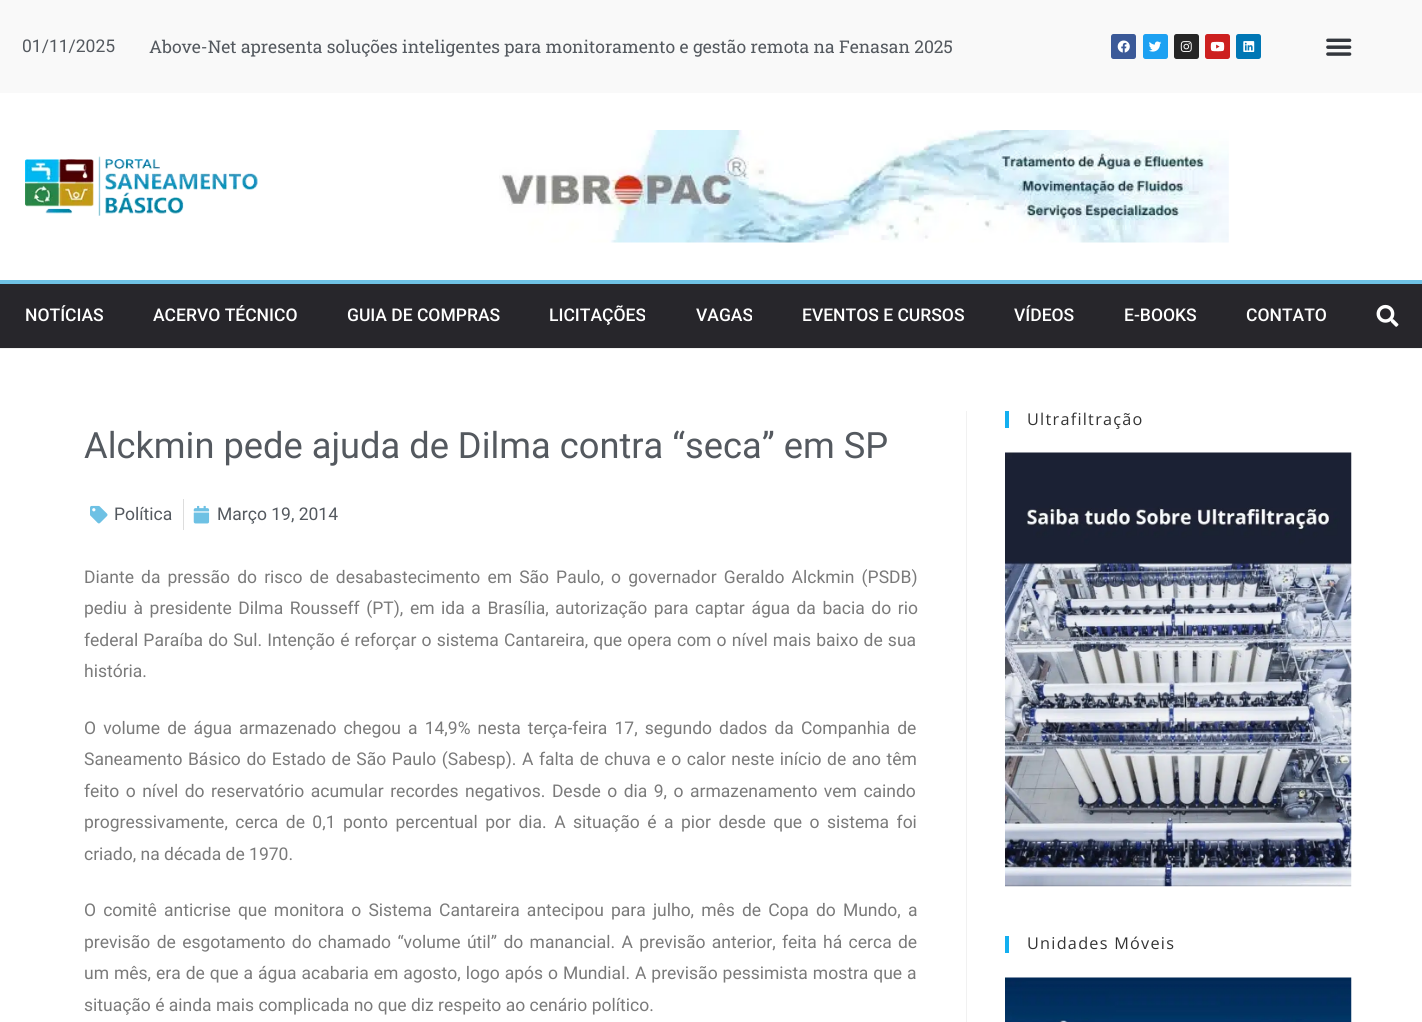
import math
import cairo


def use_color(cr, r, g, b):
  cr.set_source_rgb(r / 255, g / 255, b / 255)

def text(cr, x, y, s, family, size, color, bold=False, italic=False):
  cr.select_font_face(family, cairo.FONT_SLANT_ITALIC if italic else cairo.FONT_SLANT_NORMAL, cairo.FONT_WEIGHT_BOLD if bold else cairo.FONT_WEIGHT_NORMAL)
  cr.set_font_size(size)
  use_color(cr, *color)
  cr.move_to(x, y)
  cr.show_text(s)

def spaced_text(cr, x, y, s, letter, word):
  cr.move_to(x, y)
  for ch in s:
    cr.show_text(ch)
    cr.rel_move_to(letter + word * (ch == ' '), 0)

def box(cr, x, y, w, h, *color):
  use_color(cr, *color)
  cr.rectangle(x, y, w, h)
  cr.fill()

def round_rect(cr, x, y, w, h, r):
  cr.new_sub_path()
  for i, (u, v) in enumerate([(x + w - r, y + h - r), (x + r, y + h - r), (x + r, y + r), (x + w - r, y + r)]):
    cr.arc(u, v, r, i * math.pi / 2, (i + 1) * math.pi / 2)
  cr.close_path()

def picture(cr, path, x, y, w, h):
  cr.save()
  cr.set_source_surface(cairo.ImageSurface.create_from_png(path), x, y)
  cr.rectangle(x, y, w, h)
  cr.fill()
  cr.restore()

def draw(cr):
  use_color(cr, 255, 255, 255)
  cr.paint()
  box(cr, 0, 348, 1422, 1, 241, 241, 241)
  box(cr, 0, 0, 1422, 93, 249, 249, 249)
  use_color(cr, 59, 89, 152)
  round_rect(cr, 1111, 34, 25, 25, 2.5)
  cr.fill()
  picture(cr, "img_01.png", 1117, 40, 13, 13)
  use_color(cr, 29, 161, 242)
  round_rect(cr, 1143, 34, 25, 25, 2.5)
  cr.fill()
  picture(cr, "img_02.png", 1149, 41, 13, 11)
  use_color(cr, 38, 38, 38)
  round_rect(cr, 1174, 34, 25, 25, 2.5)
  cr.fill()
  picture(cr, "img_03.png", 1180, 41, 12, 11)
  use_color(cr, 205, 32, 31)
  round_rect(cr, 1205, 34, 25, 25, 2.5)
  cr.fill()
  picture(cr, "img_04.png", 1210, 41, 15, 11)
  use_color(cr, 0, 119, 181)
  round_rect(cr, 1236, 34, 25, 25, 2.5)
  cr.fill()
  picture(cr, "img_05.png", 1243, 41, 12, 11)
  picture(cr, "img_06.png", 1326, 38, 26, 18)
  picture(cr, "img_07.png", 25, 156, 233, 60)
  picture(cr, "img_08.png", 499, 130, 730, 113)
  box(cr, 0, 284, 1422, 64, 39, 38, 43)
  box(cr, 0, 280, 1422, 4, 110, 193, 228)
  picture(cr, "img_09.png", 1376, 304, 23, 23)
  box(cr, 966, 411, 1, 611, 241, 241, 241)
  picture(cr, "img_10.png", 90, 505, 18, 19)
  box(cr, 183, 499, 1, 31, 221, 221, 221)
  picture(cr, "img_11.png", 193, 505, 17, 19)
  box(cr, 1005, 411, 4, 17, 19, 175, 240)
  picture(cr, "img_12.png", 1005, 452, 347, 435)
  box(cr, 1005, 936, 4, 17, 19, 175, 240)
  picture(cr, "img_13.png", 1005, 977, 347, 45)
  text(cr, 22, 52, "01/11/2025", "Roboto", 17.5, (84, 89, 95))
  text(cr, 149, 53, "Above-Net apresenta soluções inteligentes para monitoramento e gestão remota na Fenasan 2025", "Roboto Slab", 17.5, (84, 89, 95))
  text(cr, 25, 321, "NOTÍCIAS", "Roboto Medium", 17.5, (255, 255, 255))
  text(cr, 153, 321, "ACERVO TÉCNICO", "Roboto Medium", 17.5, (255, 255, 255))
  text(cr, 347, 321, "GUIA DE COMPRAS", "Roboto Medium", 17.5, (255, 255, 255))
  text(cr, 549, 321, "LICITAÇÕES", "Roboto Medium", 17.5, (255, 255, 255))
  text(cr, 696, 321, "VAGAS", "Roboto Medium", 17.5, (255, 255, 255))
  text(cr, 802, 321, "EVENTOS E CURSOS", "Roboto Medium", 17.5, (255, 255, 255))
  text(cr, 1014, 321, "VÍDEOS", "Roboto Medium", 17.5, (255, 255, 255))
  text(cr, 1124, 321, "E-BOOKS", "Roboto Medium", 17.5, (255, 255, 255))
  text(cr, 1246, 321, "CONTATO", "Roboto Medium", 17.5, (255, 255, 255))
  text(cr, 84, 458, "Alckmin pede ajuda de Dilma contra “seca” em SP", "Roboto", 36.25, (84, 89, 95))
  text(cr, 114, 520, "Política", "Roboto", 17.5, (84, 89, 95))
  text(cr, 217, 520, "Março 19, 2014", "Roboto", 17.5, (84, 89, 95))
  use_color(cr, 122, 122, 122)
  spaced_text(cr, 84, 583, "Diante da pressão do risco de desabastecimento em São Paulo, o governador Geraldo Alckmin (PSDB)", 0, 2.75)
  spaced_text(cr, 84, 614, "pediu à presidente Dilma Rousseff (PT), em ida a Brasília, autorização para captar água da bacia do rio", 0, 2.25)
  spaced_text(cr, 84, 646, "federal Paraíba do Sul. Intenção é reforçar o sistema Cantareira, que opera com o nível mais baixo de sua", 0, 0.8)
  text(cr, 84, 677, "história.", "Roboto", 17.5, (122, 122, 122))
  spaced_text(cr, 84, 734, "O volume de água armazenado chegou a 14,9% nesta terça-feira 17, segundo dados da Companhia de", 0, 2.75)
  spaced_text(cr, 84, 765, "Saneamento Básico do Estado de São Paulo (Sabesp). A falta de chuva e o calor neste início de ano têm", 0, 1.25)
  spaced_text(cr, 84, 797, "feito o nível do reservatório acumular recordes negativos. Desde o dia 9, o armazenamento vem caindo", 0, 2.1)
  spaced_text(cr, 84, 828, "progressivamente, cerca de 0,1 ponto percentual por dia. A situação é a pior desde que o sistema foi", 0, 3.1)
  text(cr, 84, 860, "criado, na década de 1970.", "Roboto", 17.5, (122, 122, 122))
  spaced_text(cr, 84, 916, "O comitê anticrise que monitora o Sistema Cantareira antecipou para julho, mês de Copa do Mundo, a", 0, 2.75)
  spaced_text(cr, 84, 948, "previsão de esgotamento do chamado “volume útil” do manancial. A previsão anterior, feita há cerca de", 0, 2)
  spaced_text(cr, 84, 979, "um mês, era de que a água acabaria em agosto, logo após o Mundial. A previsão pessimista mostra que a", 0, 0.6)
  text(cr, 84, 1011, "situação é ainda mais complicada no que diz respeito ao cenário político.", "Roboto", 17.5, (122, 122, 122))
  cr.select_font_face("Open Sans")
  cr.set_font_size(16.25)
  use_color(cr, 51, 51, 51)
  spaced_text(cr, 1027, 425, "Ultrafiltração", 1.25, 0)
  spaced_text(cr, 1027, 949, "Unidades Móveis", 1.25, 0)


surface = cairo.ImageSurface(cairo.FORMAT_RGB24, 1422, 1022)
cr = cairo.Context(surface)
options = cairo.FontOptions()
options.set_hint_metrics(cairo.HINT_METRICS_OFF)
options.set_hint_style(cairo.HINT_STYLE_NONE)
cr.set_font_options(options)
cr.set_miter_limit(4)
draw(cr)
surface.write_to_png("out.png")
